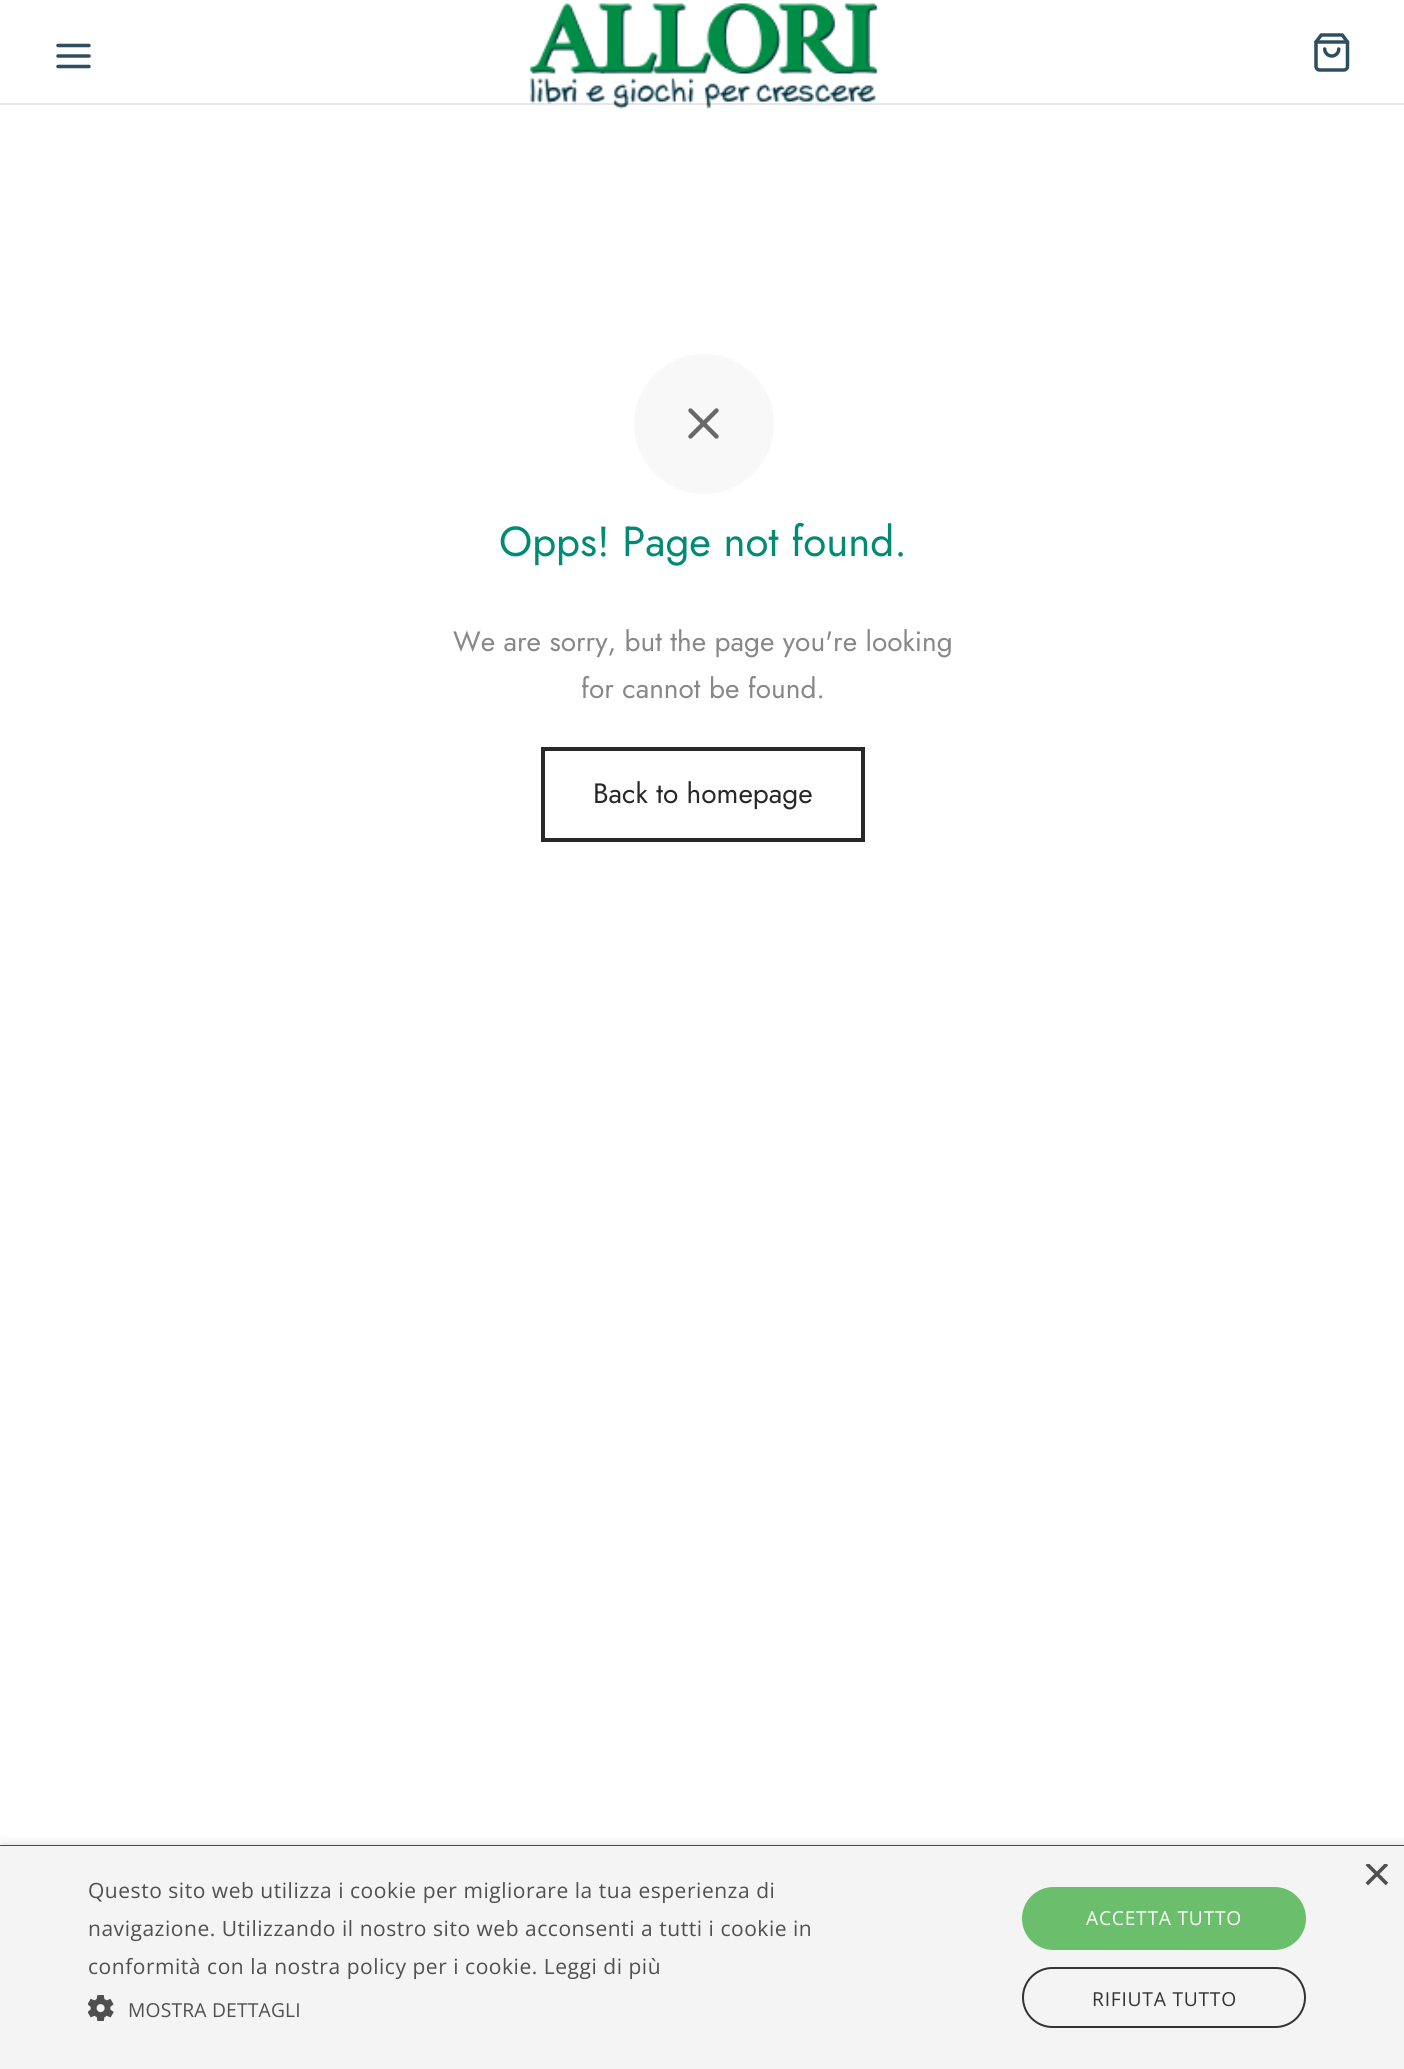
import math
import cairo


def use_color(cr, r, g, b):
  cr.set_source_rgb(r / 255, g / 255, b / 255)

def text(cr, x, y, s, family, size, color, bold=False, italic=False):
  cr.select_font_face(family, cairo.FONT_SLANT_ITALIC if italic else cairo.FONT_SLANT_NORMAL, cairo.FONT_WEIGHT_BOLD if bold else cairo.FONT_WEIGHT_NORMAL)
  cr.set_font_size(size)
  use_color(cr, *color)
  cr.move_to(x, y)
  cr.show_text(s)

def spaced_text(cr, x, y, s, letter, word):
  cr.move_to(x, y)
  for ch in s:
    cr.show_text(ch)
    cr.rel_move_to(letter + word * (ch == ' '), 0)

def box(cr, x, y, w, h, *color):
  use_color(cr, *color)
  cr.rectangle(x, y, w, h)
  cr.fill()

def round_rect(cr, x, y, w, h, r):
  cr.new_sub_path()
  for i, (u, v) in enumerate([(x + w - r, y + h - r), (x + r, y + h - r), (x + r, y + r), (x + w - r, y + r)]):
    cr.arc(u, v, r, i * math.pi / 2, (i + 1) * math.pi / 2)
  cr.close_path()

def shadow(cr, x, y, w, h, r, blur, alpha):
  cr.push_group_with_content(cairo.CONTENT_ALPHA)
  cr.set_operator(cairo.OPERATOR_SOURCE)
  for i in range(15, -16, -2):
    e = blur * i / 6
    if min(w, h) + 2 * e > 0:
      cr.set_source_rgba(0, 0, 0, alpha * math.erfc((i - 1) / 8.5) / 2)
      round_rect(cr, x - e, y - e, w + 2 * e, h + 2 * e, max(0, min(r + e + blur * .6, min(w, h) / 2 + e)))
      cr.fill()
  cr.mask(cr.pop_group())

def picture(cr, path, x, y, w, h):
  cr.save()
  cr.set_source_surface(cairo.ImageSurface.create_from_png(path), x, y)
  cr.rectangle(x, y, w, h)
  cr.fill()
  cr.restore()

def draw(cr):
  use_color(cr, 255, 255, 255)
  cr.paint()
  cr.new_path()
  cr.move_to(58, 56)
  cr.line_to(89, 56)
  cr.move_to(58, 45.5)
  cr.line_to(89, 45.5)
  cr.move_to(58, 66.5)
  cr.line_to(89, 66.5)
  use_color(cr, 46, 77, 95)
  cr.set_line_width(3.5)
  cr.set_line_cap(cairo.LINE_CAP_ROUND)
  cr.set_line_join(cairo.LINE_JOIN_ROUND)
  cr.stroke()
  picture(cr, "img_01.png", 529, 3, 349, 106)
  picture(cr, "img_02.png", 1314, 33, 36, 39)
  cr.set_source_rgba(0, 0, 0, 0.1)
  cr.rectangle(0, 103, 1404, 2)
  cr.fill()
  use_color(cr, 248, 248, 248)
  cr.arc(704, 424, 70, 0, 2 * math.pi)
  cr.fill()
  cr.new_path()
  cr.move_to(716.5, 410.5)
  cr.line_to(690.5, 436.5)
  cr.move_to(690.5, 410.5)
  cr.line_to(716.5, 436.5)
  use_color(cr, 104, 104, 104)
  cr.set_line_width(4.4)
  cr.stroke()
  cr.rectangle(543, 749, 320, 91)
  use_color(cr, 40, 40, 40)
  cr.set_line_width(4)
  cr.set_line_cap(cairo.LINE_CAP_BUTT)
  cr.set_line_join(cairo.LINE_JOIN_MITER)
  cr.stroke()
  box(cr, 0, 1845, 1404, 1, 58, 88, 101)
  use_color(cr, 0, 0, 0)
  shadow(cr, 2, 1850, 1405, 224, 0, 7, 0.35)
  box(cr, 0, 1846, 1404, 223, 244, 244, 244)
  picture(cr, "img_03.png", 88, 1995, 26, 26)
  use_color(cr, 107, 190, 107)
  round_rect(cr, 1022, 1887, 284, 63, 31.5)
  cr.fill()
  round_rect(cr, 1023, 1968, 282, 59, 29.5)
  use_color(cr, 51, 51, 51)
  cr.set_line_width(2)
  cr.stroke()
  text(cr, 499, 556, "Opps! Page not found.", "Jost", 42, (1, 139, 116))
  text(cr, 453, 651, "We are sorry, but the page you're looking", "Jost", 28, (136, 136, 136))
  text(cr, 581, 698, "for cannot be found.", "Jost", 28, (136, 136, 136))
  text(cr, 593, 803, "Back to homepage", "Jost", 28, (40, 40, 40))
  cr.save()
  cr.rectangle(1362, 1864, 26, 26)
  cr.clip()
  text(cr, 1362, 1891, "×", "Liberation Sans", 51, (80, 80, 80))
  cr.restore()
  cr.select_font_face("Open Sans")
  cr.set_font_size(21)
  use_color(cr, 80, 80, 80)
  spaced_text(cr, 88, 1898, "Questo sito web utilizza i cookie per migliorare la tua esperienza di", 0.53, 0)
  spaced_text(cr, 88, 1936, "navigazione. Utilizzando il nostro sito web acconsenti a tutti i cookie in", 0.53, 0)
  spaced_text(cr, 88, 1974, "conformità con la nostra policy per i cookie. Leggi di più", 0.53, 0)
  cr.set_font_size(19.25)
  spaced_text(cr, 128, 2017, "MOSTRA DETTAGLI", 0.2, 0)
  use_color(cr, 255, 255, 255)
  spaced_text(cr, 1086, 1925, "ACCETTA TUTTO", 0.75, 0)
  use_color(cr, 51, 51, 51)
  spaced_text(cr, 1092, 2006, "RIFIUTA TUTTO", 0.75, 0)


surface = cairo.ImageSurface(cairo.FORMAT_RGB24, 1404, 2069)
cr = cairo.Context(surface)
options = cairo.FontOptions()
options.set_hint_metrics(cairo.HINT_METRICS_OFF)
options.set_hint_style(cairo.HINT_STYLE_NONE)
cr.set_font_options(options)
cr.set_miter_limit(4)
draw(cr)
surface.write_to_png("out.png")
